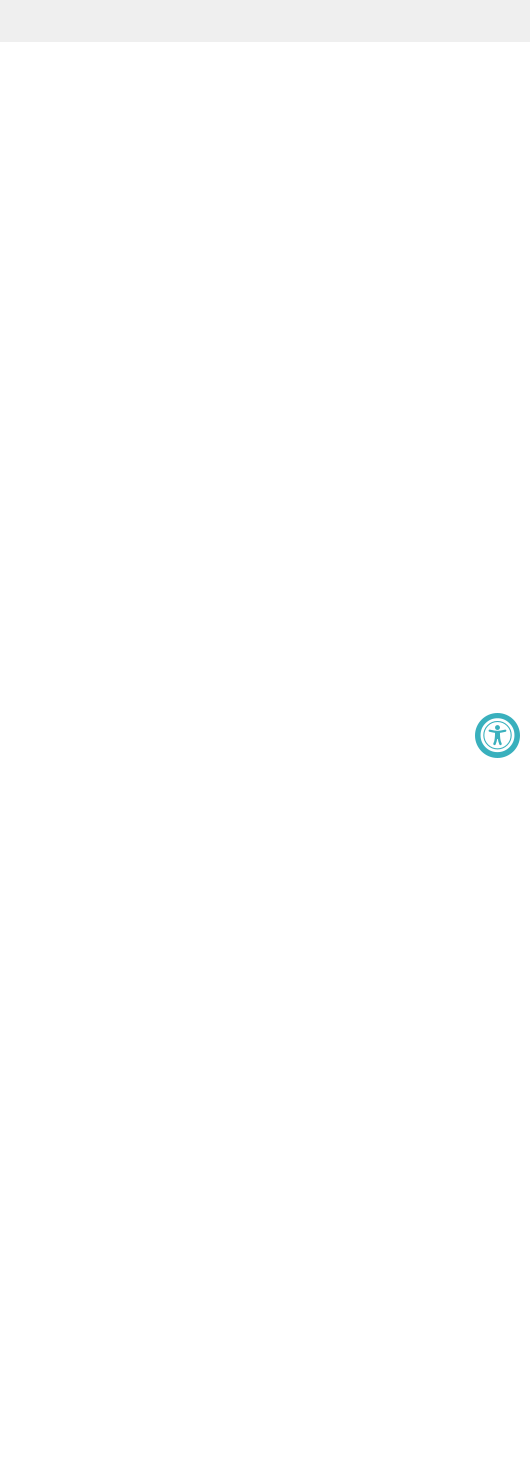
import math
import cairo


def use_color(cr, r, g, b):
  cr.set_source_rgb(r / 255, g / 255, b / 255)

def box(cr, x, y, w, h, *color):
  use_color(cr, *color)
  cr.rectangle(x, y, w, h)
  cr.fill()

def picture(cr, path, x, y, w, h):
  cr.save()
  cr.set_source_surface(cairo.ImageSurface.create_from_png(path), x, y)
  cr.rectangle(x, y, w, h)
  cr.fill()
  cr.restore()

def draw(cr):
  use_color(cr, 255, 255, 255)
  cr.paint()
  box(cr, 0, 0, 530, 42, 239, 239, 239)
  use_color(cr, 57, 176, 189)
  cr.arc(497.5, 735.5, 22.5, 0, 2 * math.pi)
  cr.fill()
  picture(cr, "img_01.png", 480, 718, 35, 35)


surface = cairo.ImageSurface(cairo.FORMAT_RGB24, 530, 1470)
cr = cairo.Context(surface)
options = cairo.FontOptions()
options.set_hint_metrics(cairo.HINT_METRICS_OFF)
options.set_hint_style(cairo.HINT_STYLE_NONE)
cr.set_font_options(options)
cr.set_miter_limit(4)
draw(cr)
surface.write_to_png("out.png")
